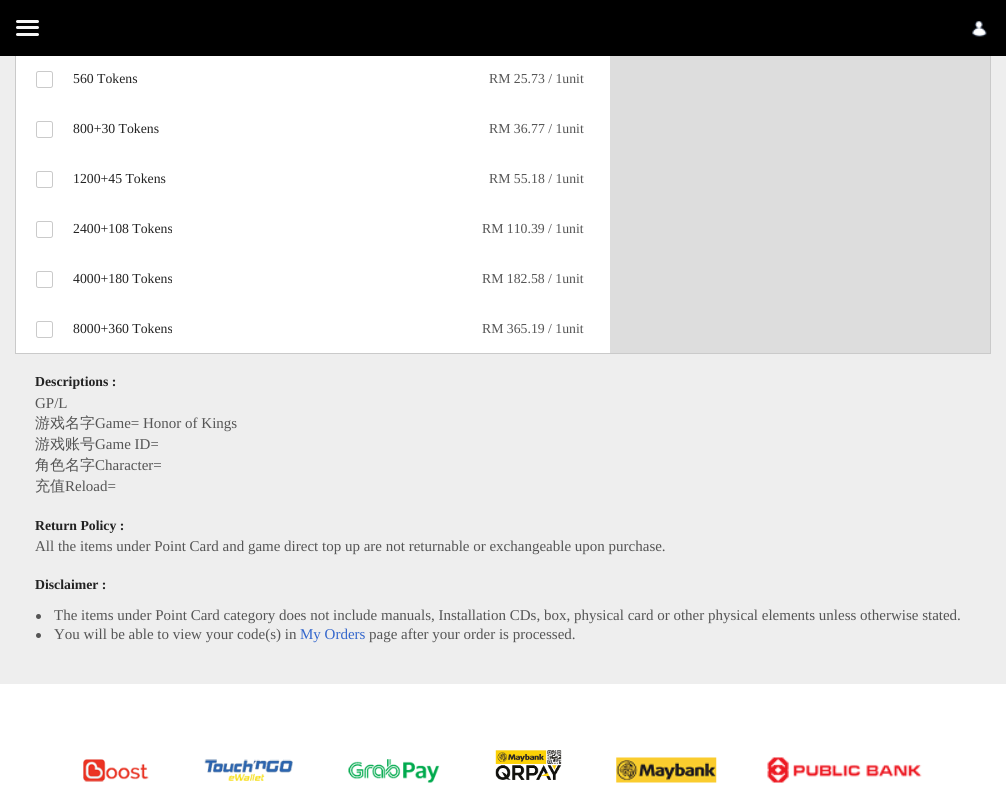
import math
import cairo


def use_color(cr, r, g, b):
  cr.set_source_rgb(r / 255, g / 255, b / 255)

def text(cr, x, y, s, family, size, color, bold=False, italic=False):
  cr.select_font_face(family, cairo.FONT_SLANT_ITALIC if italic else cairo.FONT_SLANT_NORMAL, cairo.FONT_WEIGHT_BOLD if bold else cairo.FONT_WEIGHT_NORMAL)
  cr.set_font_size(size)
  use_color(cr, *color)
  cr.move_to(x, y)
  cr.show_text(s)

def box(cr, x, y, w, h, *color):
  use_color(cr, *color)
  cr.rectangle(x, y, w, h)
  cr.fill()

def round_rect(cr, x, y, w, h, r):
  cr.new_sub_path()
  for i, (u, v) in enumerate([(x + w - r, y + h - r), (x + r, y + h - r), (x + r, y + r), (x + w - r, y + r)]):
    cr.arc(u, v, r, i * math.pi / 2, (i + 1) * math.pi / 2)
  cr.close_path()

def picture(cr, path, x, y, w, h):
  cr.save()
  cr.set_source_surface(cairo.ImageSurface.create_from_png(path), x, y)
  cr.rectangle(x, y, w, h)
  cr.fill()
  cr.restore()

def draw(cr):
  use_color(cr, 255, 255, 255)
  cr.paint()
  box(cr, 0, 56, 1006, 628, 238, 238, 238)
  cr.rectangle(15.5, -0.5, 975, 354)
  use_color(cr, 202, 202, 202)
  cr.set_line_width(1)
  cr.stroke()
  box(cr, 0, 0, 1006, 56, 0, 0, 0)
  use_color(cr, 245, 245, 245)
  round_rect(cr, 16, 20, 23, 3, 1.5)
  cr.fill()
  round_rect(cr, 16, 26, 23, 3, 1.5)
  cr.fill()
  round_rect(cr, 16, 33, 23, 3, 1.5)
  cr.fill()
  picture(cr, "img_01.png", 972, 21, 15, 16)
  box(cr, 16, 56, 594, 297, 255, 255, 255)
  round_rect(cr, 36.5, 71.5, 16, 16, 2)
  use_color(cr, 202, 202, 202)
  cr.stroke()
  round_rect(cr, 36.5, 121.5, 16, 16, 2)
  cr.stroke()
  round_rect(cr, 36.5, 171.5, 16, 16, 2)
  cr.stroke()
  round_rect(cr, 36.5, 221.5, 16, 16, 2)
  cr.stroke()
  round_rect(cr, 36.5, 271.5, 16, 16, 2)
  cr.stroke()
  round_rect(cr, 36.5, 321.5, 16, 16, 2)
  cr.stroke()
  box(cr, 610, 56, 380, 297, 221, 221, 221)
  use_color(cr, 85, 85, 85)
  cr.arc(38.5, 616.5, 2.5, 0, 2 * math.pi)
  cr.fill()
  cr.arc(38.5, 635.5, 2.5, 0, 2 * math.pi)
  cr.fill()
  picture(cr, "img_02.png", 83, 759, 66, 23)
  picture(cr, "img_03.png", 204, 759, 89, 22)
  picture(cr, "img_04.png", 348, 759, 92, 24)
  picture(cr, "img_05.png", 495, 750, 67, 30)
  picture(cr, "img_06.png", 616, 757, 101, 26)
  picture(cr, "img_07.png", 767, 757, 155, 26)
  text(cr, 73, 83, "560 Tokens", "Liberation Serif", 13.75, (34, 34, 34))
  text(cr, 489, 83, "RM 25.73 / 1unit", "Liberation Serif", 13.75, (85, 85, 85))
  text(cr, 73, 133, "800+30 Tokens", "Liberation Serif", 13.75, (34, 34, 34))
  text(cr, 489, 133, "RM 36.77 / 1unit", "Liberation Serif", 13.75, (85, 85, 85))
  text(cr, 73, 183, "1200+45 Tokens", "Liberation Serif", 13.75, (34, 34, 34))
  text(cr, 489, 183, "RM 55.18 / 1unit", "Liberation Serif", 13.75, (85, 85, 85))
  text(cr, 73, 233, "2400+108 Tokens", "Liberation Serif", 13.75, (34, 34, 34))
  text(cr, 482, 233, "RM 110.39 / 1unit", "Liberation Serif", 13.75, (85, 85, 85))
  text(cr, 73, 283, "4000+180 Tokens", "Liberation Serif", 13.75, (34, 34, 34))
  text(cr, 482, 283, "RM 182.58 / 1unit", "Liberation Serif", 13.75, (85, 85, 85))
  text(cr, 73, 333, "8000+360 Tokens", "Liberation Serif", 13.75, (34, 34, 34))
  text(cr, 482, 333, "RM 365.19 / 1unit", "Liberation Serif", 13.75, (85, 85, 85))
  text(cr, 35, 386, "Descriptions :", "Liberation Serif", 13.75, (34, 34, 34), bold=True)
  text(cr, 35, 408, "GP/L", "Liberation Serif", 15, (85, 85, 85))
  text(cr, 35, 428, "游戏名字", "WenQuanYi Zen Hei Medium", 15, (85, 85, 85))
  text(cr, 95, 428, "Game= Honor of Kings", "Liberation Serif", 15, (85, 85, 85))
  text(cr, 35, 449, "游戏账号", "WenQuanYi Zen Hei Medium", 15, (85, 85, 85))
  text(cr, 95, 449, "Game ID=", "Liberation Serif", 15, (85, 85, 85))
  text(cr, 35, 470, "角色名字", "WenQuanYi Zen Hei Medium", 15, (85, 85, 85))
  text(cr, 95, 470, "Character=", "Liberation Serif", 15, (85, 85, 85))
  text(cr, 35, 491, "充值", "WenQuanYi Zen Hei Medium", 15, (85, 85, 85))
  text(cr, 65, 491, "Reload=", "Liberation Serif", 15, (85, 85, 85))
  text(cr, 35, 530, "Return Policy :", "Liberation Serif", 13.75, (34, 34, 34), bold=True)
  text(cr, 35, 551, "All the items under Point Card and game direct top up are not returnable or exchangeable upon purchase.", "Liberation Serif", 15, (85, 85, 85))
  text(cr, 35, 589, "Disclaimer :", "Liberation Serif", 13.75, (34, 34, 34), bold=True)
  text(cr, 54, 620, "The items under Point Card category does not include manuals, Installation CDs, box, physical card or other physical elements unless otherwise stated.", "Liberation Serif", 15, (85, 85, 85))
  text(cr, 54, 639, "You will be able to view your code(s) in", "Liberation Serif", 15, (85, 85, 85))
  text(cr, 300, 639, "My Orders", "Liberation Serif", 15, (51, 102, 204))
  text(cr, 369, 639, "page after your order is processed.", "Liberation Serif", 15, (85, 85, 85))


surface = cairo.ImageSurface(cairo.FORMAT_RGB24, 1006, 795)
cr = cairo.Context(surface)
options = cairo.FontOptions()
options.set_hint_metrics(cairo.HINT_METRICS_OFF)
options.set_hint_style(cairo.HINT_STYLE_NONE)
cr.set_font_options(options)
cr.set_miter_limit(4)
draw(cr)
surface.write_to_png("out.png")
